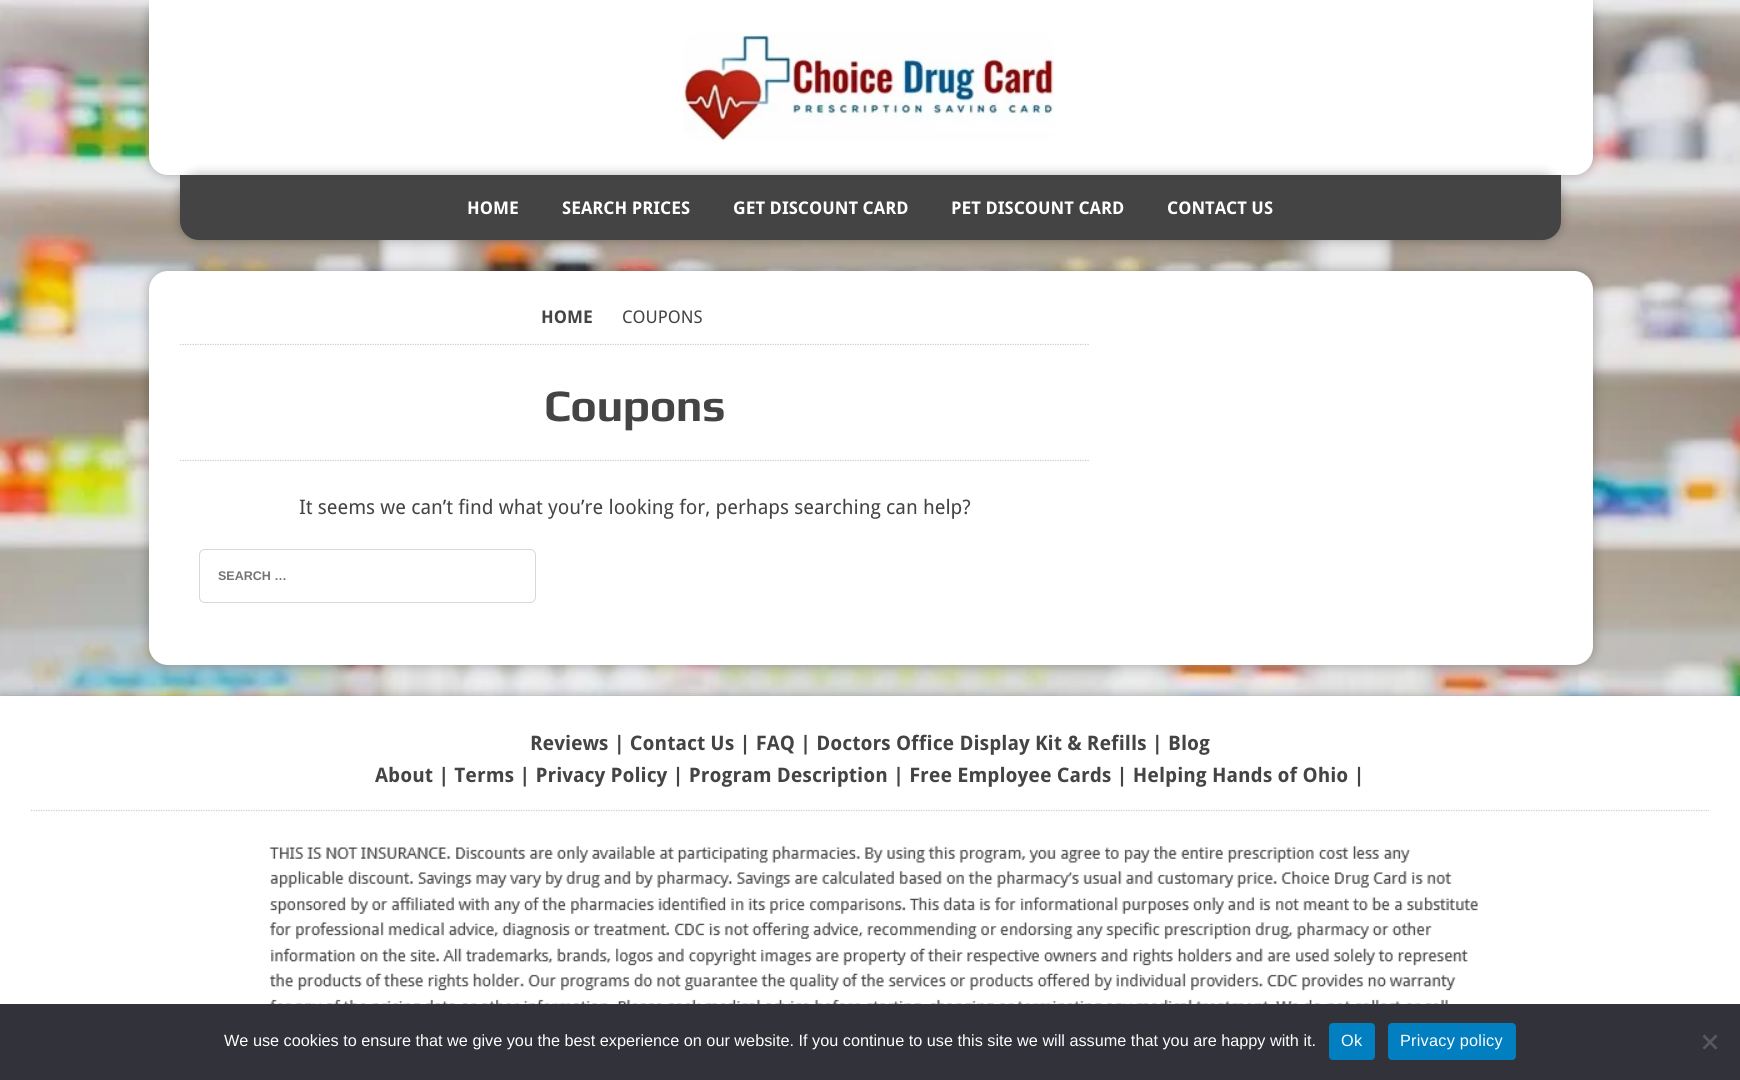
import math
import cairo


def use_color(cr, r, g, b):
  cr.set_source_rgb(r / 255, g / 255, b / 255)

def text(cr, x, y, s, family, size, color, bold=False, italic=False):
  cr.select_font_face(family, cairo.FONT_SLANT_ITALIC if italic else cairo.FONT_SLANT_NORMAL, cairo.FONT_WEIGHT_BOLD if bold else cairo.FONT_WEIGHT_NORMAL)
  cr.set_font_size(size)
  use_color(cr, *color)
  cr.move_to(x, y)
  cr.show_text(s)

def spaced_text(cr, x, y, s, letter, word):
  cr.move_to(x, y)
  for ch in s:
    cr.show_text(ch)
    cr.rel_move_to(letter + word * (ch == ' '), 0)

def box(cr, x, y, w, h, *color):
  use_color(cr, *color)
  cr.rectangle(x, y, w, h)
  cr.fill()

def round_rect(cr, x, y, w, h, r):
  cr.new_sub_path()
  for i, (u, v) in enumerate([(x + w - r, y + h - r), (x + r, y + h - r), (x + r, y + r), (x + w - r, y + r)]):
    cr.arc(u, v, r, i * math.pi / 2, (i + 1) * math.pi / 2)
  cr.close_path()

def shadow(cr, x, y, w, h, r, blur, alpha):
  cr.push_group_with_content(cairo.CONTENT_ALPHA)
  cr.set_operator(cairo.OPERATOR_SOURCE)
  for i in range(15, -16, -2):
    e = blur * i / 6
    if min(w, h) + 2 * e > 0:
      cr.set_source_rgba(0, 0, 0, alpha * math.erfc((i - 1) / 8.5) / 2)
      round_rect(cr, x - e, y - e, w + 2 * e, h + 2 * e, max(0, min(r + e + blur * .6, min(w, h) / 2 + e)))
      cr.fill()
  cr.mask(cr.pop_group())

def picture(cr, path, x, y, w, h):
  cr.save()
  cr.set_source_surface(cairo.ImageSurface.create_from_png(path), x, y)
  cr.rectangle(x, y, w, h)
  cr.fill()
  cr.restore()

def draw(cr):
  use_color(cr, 255, 255, 255)
  cr.paint()
  picture(cr, "img_01.png", 0, 0, 1740, 696)
  use_color(cr, 0, 0, 0)
  shadow(cr, 149, 0, 1444, 175, 19, 6, 0.3)
  use_color(cr, 255, 255, 255)
  cr.new_path()
  cr.move_to(149, 0)
  cr.line_to(1593, 0)
  cr.line_to(1593, 156)
  cr.curve_to(1593, 166.5, 1584.5, 175, 1574, 175)
  cr.line_to(168, 175)
  cr.curve_to(157.5, 175, 149, 166.5, 149, 156)
  cr.close_path()
  cr.fill()
  picture(cr, "img_02.png", 683, 33, 371, 108)
  use_color(cr, 0, 0, 0)
  shadow(cr, 180, 175, 1381, 65, 19, 6, 0.3)
  use_color(cr, 68, 68, 68)
  cr.new_path()
  cr.move_to(180, 175)
  cr.line_to(1561, 175)
  cr.line_to(1561, 221)
  cr.curve_to(1561, 231.5, 1552.5, 240, 1542, 240)
  cr.line_to(199, 240)
  cr.curve_to(188.5, 240, 180, 231.5, 180, 221)
  cr.close_path()
  cr.fill()
  use_color(cr, 0, 0, 0)
  shadow(cr, 149, 271, 1444, 394, 19, 6, 0.3)
  use_color(cr, 255, 255, 255)
  round_rect(cr, 149, 271, 1444, 394, 19)
  cr.fill()
  cr.new_path()
  cr.move_to(180, 344.5)
  cr.line_to(1090, 344.5)
  use_color(cr, 204, 204, 204)
  cr.set_line_width(1.2)
  cr.set_dash([1.25, 1.25])
  cr.stroke()
  cr.new_path()
  cr.move_to(180, 460.5)
  cr.line_to(1090, 460.5)
  cr.stroke()
  round_rect(cr, 199.5, 549.5, 336, 53, 5.5)
  use_color(cr, 215, 216, 216)
  cr.set_line_width(1)
  cr.set_dash([])
  cr.stroke()
  use_color(cr, 0, 0, 0)
  shadow(cr, 0, 696, 1740, 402, 0, 6, 0.3)
  box(cr, 0, 696, 1740, 308, 255, 255, 255)
  cr.new_path()
  cr.move_to(31, 810.5)
  cr.line_to(1709, 810.5)
  use_color(cr, 204, 204, 204)
  cr.set_line_width(1.2)
  cr.set_dash([1.25, 1.25])
  cr.stroke()
  picture(cr, "img_03.png", 269, 846, 1209, 158)
  box(cr, 0, 1004, 1740, 76, 50, 50, 58)
  use_color(cr, 1, 127, 193)
  round_rect(cr, 1329, 1023, 46, 37, 4)
  cr.fill()
  round_rect(cr, 1388, 1023, 128, 37, 4)
  cr.fill()
  use_color(cr, 89, 89, 93)
  cr.new_path()
  cr.move_to(1715.5, 1034.5)
  cr.line_to(1717.5, 1036.5)
  cr.line_to(1704.5, 1049.5)
  cr.line_to(1702.5, 1048)
  cr.close_path()
  cr.fill()
  cr.new_path()
  cr.move_to(1702.5, 1036.5)
  cr.line_to(1704.5, 1034.5)
  cr.line_to(1717.5, 1048)
  cr.line_to(1715.5, 1049.5)
  cr.close_path()
  cr.fill()
  text(cr, 467, 214, "HOME", "Droid Sans", 17.5, (255, 255, 255), bold=True)
  text(cr, 562, 214, "SEARCH PRICES", "Droid Sans", 17.5, (255, 255, 255), bold=True)
  text(cr, 733, 214, "GET DISCOUNT CARD", "Droid Sans", 17.5, (255, 255, 255), bold=True)
  text(cr, 951, 214, "PET DISCOUNT CARD", "Droid Sans", 17.5, (255, 255, 255), bold=True)
  text(cr, 1167, 214, "CONTACT US", "Droid Sans", 17.5, (255, 255, 255), bold=True)
  text(cr, 541, 323, "HOME", "Droid Sans", 17.5, (68, 68, 68), bold=True)
  text(cr, 622, 323, "COUPONS", "Droid Sans", 17.5, (68, 68, 68))
  cr.select_font_face("Play", cairo.FONT_SLANT_NORMAL, cairo.FONT_WEIGHT_BOLD)
  cr.set_font_size(45)
  spaced_text(cr, 544, 421, "Coupons", -0.5, 0)
  text(cr, 299, 514, "It seems we can’t find what you’re looking for, perhaps searching can help?", "Droid Sans", 20, (68, 68, 68))
  text(cr, 218, 580, "SEARCH …", "Liberation Sans", 12.5, (117, 117, 117), bold=True)
  text(cr, 530, 750, "Reviews | Contact Us | FAQ | Doctors Office Display Kit & Refills | Blog", "Droid Sans", 20, (68, 68, 68), bold=True)
  text(cr, 375, 782, "About | Terms | Privacy Policy | Program Description | Free Employee Cards | Helping Hands of Ohio |", "Droid Sans", 20, (68, 68, 68), bold=True)
  text(cr, 224, 1046, "We use cookies to ensure that we give you the best experience on our website. If you continue to use this site we will assume that you are happy with it.", "Liberation Sans", 16.25, (255, 255, 255))
  spaced_text(cr, 1341, 1046, "Ok", 0.25, 0)
  spaced_text(cr, 1400, 1046, "Privacy policy", 0.25, 0)


surface = cairo.ImageSurface(cairo.FORMAT_RGB24, 1740, 1080)
cr = cairo.Context(surface)
options = cairo.FontOptions()
options.set_hint_metrics(cairo.HINT_METRICS_OFF)
options.set_hint_style(cairo.HINT_STYLE_NONE)
cr.set_font_options(options)
cr.set_miter_limit(4)
draw(cr)
surface.write_to_png("out.png")
